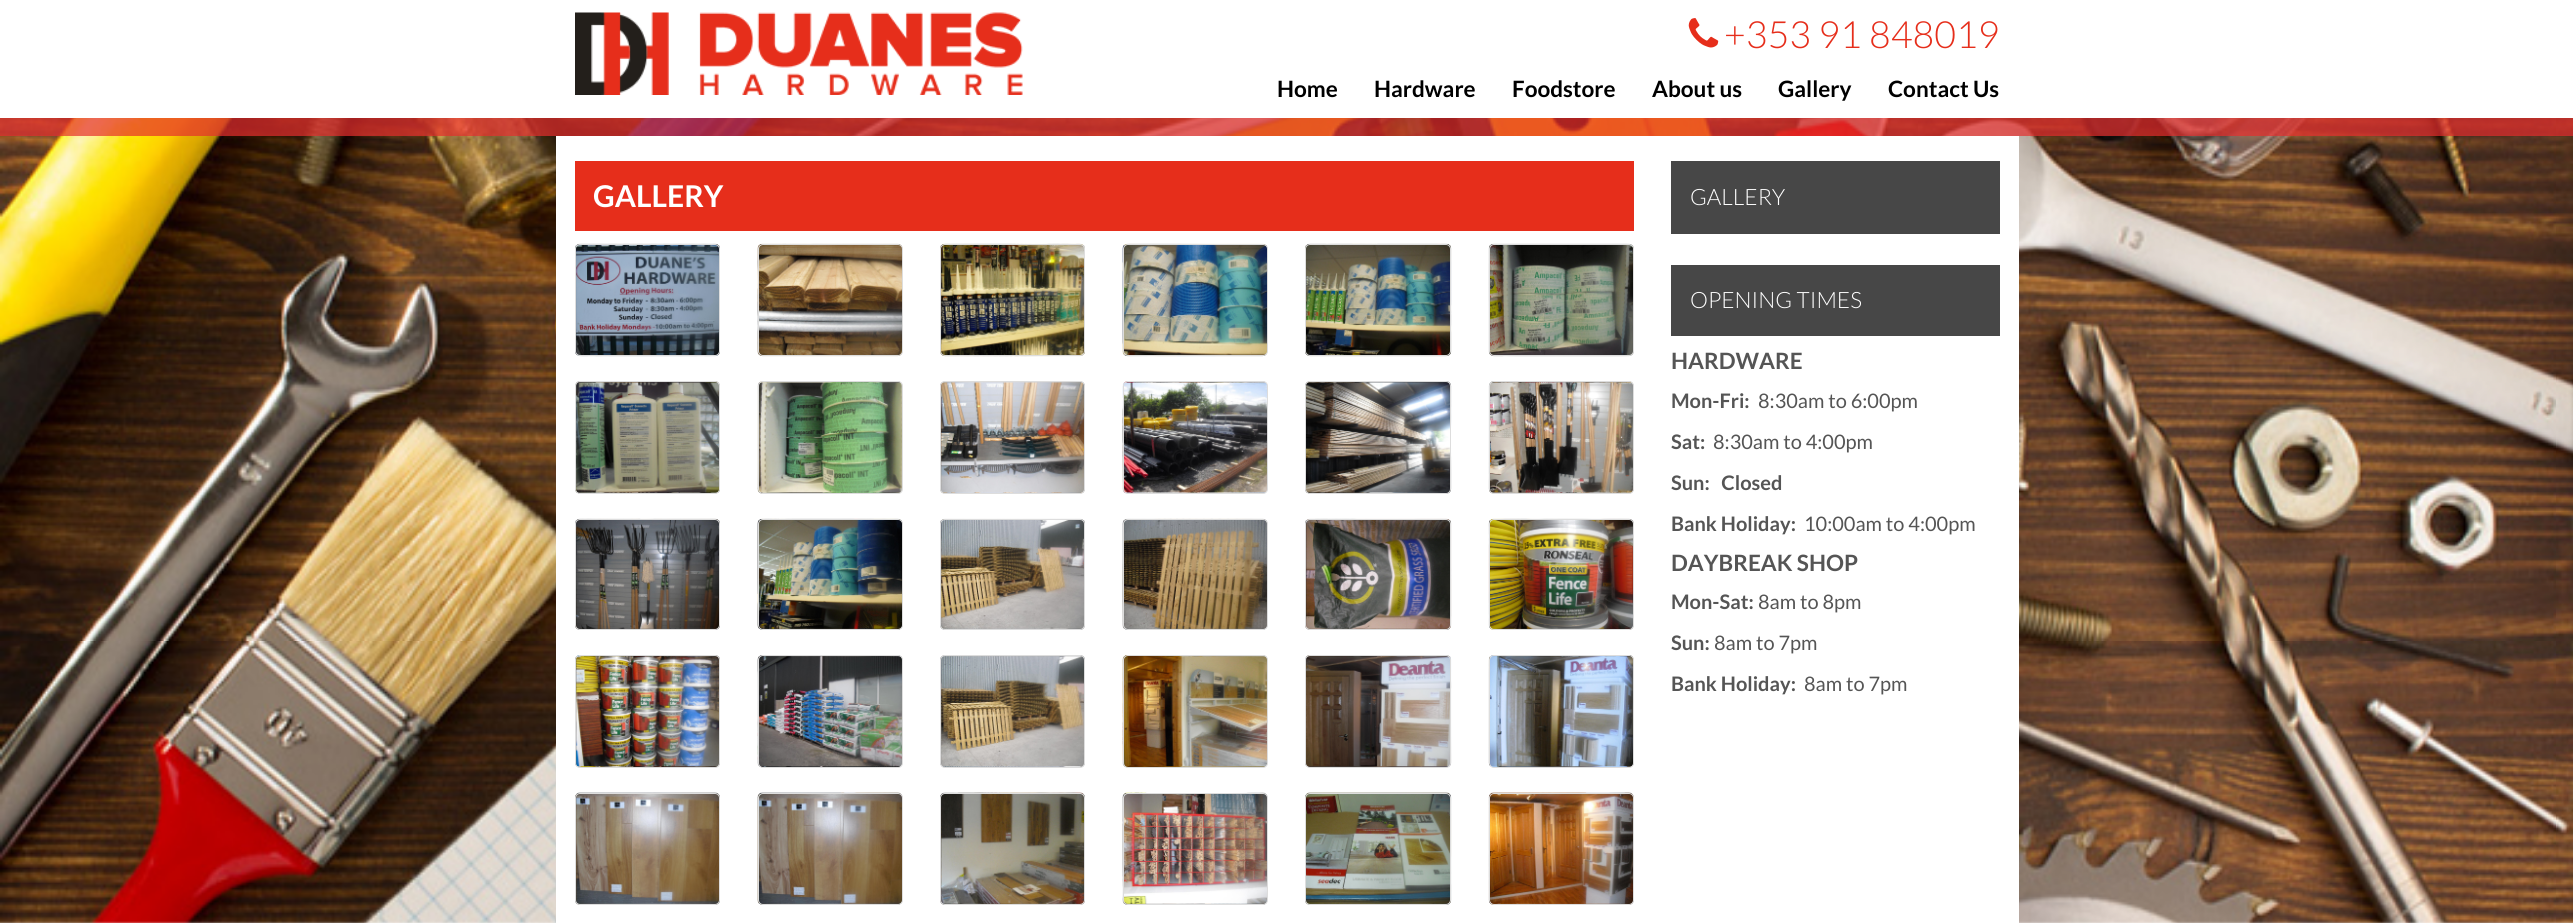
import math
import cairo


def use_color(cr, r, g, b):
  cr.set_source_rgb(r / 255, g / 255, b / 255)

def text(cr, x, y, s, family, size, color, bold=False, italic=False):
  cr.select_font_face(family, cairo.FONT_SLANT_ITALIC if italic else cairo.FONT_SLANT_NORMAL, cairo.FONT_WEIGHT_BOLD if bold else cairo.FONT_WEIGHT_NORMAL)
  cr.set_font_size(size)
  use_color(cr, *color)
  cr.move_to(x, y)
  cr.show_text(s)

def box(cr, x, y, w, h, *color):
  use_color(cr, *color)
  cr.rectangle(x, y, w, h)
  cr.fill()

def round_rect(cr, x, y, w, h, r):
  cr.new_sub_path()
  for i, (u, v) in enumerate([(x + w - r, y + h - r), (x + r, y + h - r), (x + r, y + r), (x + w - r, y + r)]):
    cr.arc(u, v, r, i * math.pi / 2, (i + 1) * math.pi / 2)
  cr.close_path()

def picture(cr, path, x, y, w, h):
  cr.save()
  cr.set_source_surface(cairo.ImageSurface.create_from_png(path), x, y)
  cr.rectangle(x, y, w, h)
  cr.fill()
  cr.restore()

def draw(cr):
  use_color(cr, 255, 255, 255)
  cr.paint()
  picture(cr, "img_01.png", 575, 12, 448, 83)
  picture(cr, "img_02.png", 1688, 18, 31, 30)
  picture(cr, "img_03.png", 0, 118, 2573, 805)
  cr.set_source_rgba(0.902, 0.18, 0.184, 0.7)
  cr.rectangle(0, 118, 2573, 18)
  cr.fill()
  box(cr, 556, 136, 1463, 787, 255, 255, 255)
  box(cr, 575, 161, 1059, 70, 230, 46, 27)
  picture(cr, "img_04.png", 575, 243, 145, 114)
  round_rect(cr, 575.5, 244.5, 144, 111, 4.5)
  use_color(cr, 221, 221, 221)
  cr.set_line_width(1)
  cr.stroke()
  picture(cr, "img_05.png", 757, 243, 146, 114)
  round_rect(cr, 758.5, 244.5, 144, 111, 4.5)
  cr.stroke()
  picture(cr, "img_06.png", 940, 243, 145, 114)
  round_rect(cr, 940.5, 244.5, 144, 111, 4.5)
  cr.stroke()
  picture(cr, "img_07.png", 1122, 243, 146, 114)
  round_rect(cr, 1123.5, 244.5, 144, 111, 4.5)
  cr.stroke()
  picture(cr, "img_08.png", 1305, 243, 147, 114)
  round_rect(cr, 1305.5, 244.5, 145, 111, 4.5)
  cr.stroke()
  picture(cr, "img_09.png", 1488, 243, 146, 114)
  round_rect(cr, 1489.5, 244.5, 144, 111, 4.5)
  cr.stroke()
  picture(cr, "img_10.png", 575, 381, 145, 113)
  round_rect(cr, 575.5, 381.5, 144, 112, 4.5)
  cr.stroke()
  picture(cr, "img_11.png", 757, 381, 146, 113)
  round_rect(cr, 758.5, 381.5, 144, 112, 4.5)
  cr.stroke()
  picture(cr, "img_12.png", 940, 381, 145, 113)
  round_rect(cr, 940.5, 381.5, 144, 112, 4.5)
  cr.stroke()
  picture(cr, "img_13.png", 1122, 381, 146, 113)
  round_rect(cr, 1123.5, 381.5, 144, 112, 4.5)
  cr.stroke()
  picture(cr, "img_14.png", 1305, 381, 147, 113)
  round_rect(cr, 1305.5, 381.5, 145, 112, 4.5)
  cr.stroke()
  picture(cr, "img_15.png", 1488, 381, 146, 113)
  round_rect(cr, 1489.5, 381.5, 144, 112, 4.5)
  cr.stroke()
  picture(cr, "img_16.png", 575, 518, 145, 112)
  round_rect(cr, 575.5, 519.5, 144, 110, 4.5)
  cr.stroke()
  picture(cr, "img_17.png", 757, 518, 146, 112)
  round_rect(cr, 758.5, 519.5, 144, 110, 4.5)
  cr.stroke()
  picture(cr, "img_18.png", 940, 518, 145, 112)
  round_rect(cr, 940.5, 519.5, 144, 110, 4.5)
  cr.stroke()
  picture(cr, "img_19.png", 1122, 518, 146, 112)
  round_rect(cr, 1123.5, 519.5, 144, 110, 4.5)
  cr.stroke()
  picture(cr, "img_20.png", 1305, 518, 147, 112)
  round_rect(cr, 1305.5, 519.5, 145, 110, 4.5)
  cr.stroke()
  picture(cr, "img_21.png", 1488, 518, 146, 112)
  round_rect(cr, 1489.5, 519.5, 144, 110, 4.5)
  cr.stroke()
  picture(cr, "img_22.png", 575, 655, 145, 113)
  round_rect(cr, 575.5, 655.5, 144, 112, 4.5)
  cr.stroke()
  picture(cr, "img_23.png", 757, 655, 146, 113)
  round_rect(cr, 758.5, 655.5, 144, 112, 4.5)
  cr.stroke()
  picture(cr, "img_24.png", 940, 655, 145, 113)
  round_rect(cr, 940.5, 655.5, 144, 112, 4.5)
  cr.stroke()
  picture(cr, "img_25.png", 1122, 655, 146, 113)
  round_rect(cr, 1123.5, 655.5, 144, 112, 4.5)
  cr.stroke()
  picture(cr, "img_26.png", 1305, 655, 147, 113)
  round_rect(cr, 1305.5, 655.5, 145, 112, 4.5)
  cr.stroke()
  picture(cr, "img_27.png", 1488, 655, 146, 113)
  round_rect(cr, 1489.5, 655.5, 144, 112, 4.5)
  cr.stroke()
  picture(cr, "img_28.png", 575, 792, 145, 113)
  round_rect(cr, 575.5, 793.5, 144, 111, 4.5)
  cr.stroke()
  picture(cr, "img_29.png", 757, 792, 146, 113)
  round_rect(cr, 758.5, 793.5, 144, 111, 4.5)
  cr.stroke()
  picture(cr, "img_30.png", 940, 792, 145, 113)
  round_rect(cr, 940.5, 793.5, 144, 111, 4.5)
  cr.stroke()
  picture(cr, "img_31.png", 1122, 792, 146, 113)
  round_rect(cr, 1123.5, 793.5, 144, 111, 4.5)
  cr.stroke()
  picture(cr, "img_32.png", 1305, 792, 147, 113)
  round_rect(cr, 1305.5, 793.5, 145, 111, 4.5)
  cr.stroke()
  picture(cr, "img_33.png", 1488, 792, 146, 113)
  round_rect(cr, 1489.5, 793.5, 144, 111, 4.5)
  cr.stroke()
  box(cr, 1671, 161, 329, 73, 71, 71, 71)
  box(cr, 1671, 265, 329, 71, 71, 71, 71)
  text(cr, 1724, 48, "+353 91 848019", "Lato Light", 37.5, (230, 46, 27))
  text(cr, 1277, 97, "Home", "Lato", 22.5, (0, 0, 0), bold=True)
  text(cr, 1374, 97, "Hardware", "Lato", 22.5, (0, 0, 0), bold=True)
  text(cr, 1512, 97, "Foodstore", "Lato", 22.5, (0, 0, 0), bold=True)
  text(cr, 1652, 97, "About us", "Lato", 22.5, (0, 0, 0), bold=True)
  text(cr, 1778, 97, "Gallery", "Lato", 22.5, (0, 0, 0), bold=True)
  text(cr, 1888, 97, "Contact Us", "Lato", 22.5, (0, 0, 0), bold=True)
  text(cr, 593, 207, "GALLERY", "Lato", 30, (255, 255, 255), bold=True)
  text(cr, 1690, 205, "GALLERY", "Lato Light", 22.5, (255, 255, 255))
  text(cr, 1690, 308, "OPENING TIMES", "Lato Light", 22.5, (255, 255, 255))
  text(cr, 1671, 369, "HARDWARE", "Lato", 22.5, (85, 85, 85), bold=True)
  text(cr, 1671, 408, "Mon-Fri:", "Lato", 20, (85, 85, 85), bold=True)
  text(cr, 1758, 408, "8:30am to 6:00pm", "Lato", 20, (85, 85, 85))
  text(cr, 1671, 449, "Sat:", "Lato", 20, (85, 85, 85), bold=True)
  text(cr, 1713, 449, "8:30am to 4:00pm", "Lato", 20, (85, 85, 85))
  text(cr, 1671, 490, "Sun:   Closed", "Lato", 20, (85, 85, 85), bold=True)
  text(cr, 1671, 531, "Bank Holiday:", "Lato", 20, (85, 85, 85), bold=True)
  text(cr, 1804, 531, "10:00am to 4:00pm", "Lato", 20, (85, 85, 85))
  text(cr, 1671, 571, "DAYBREAK SHOP", "Lato", 22.5, (85, 85, 85), bold=True)
  text(cr, 1671, 609, "Mon-Sat:", "Lato", 20, (85, 85, 85), bold=True)
  text(cr, 1758, 609, "8am to 8pm", "Lato", 20, (85, 85, 85))
  text(cr, 1671, 650, "Sun:", "Lato", 20, (85, 85, 85), bold=True)
  text(cr, 1714, 650, "8am to 7pm", "Lato", 20, (85, 85, 85))
  text(cr, 1671, 691, "Bank Holiday:", "Lato", 20, (85, 85, 85), bold=True)
  text(cr, 1804, 691, "8am to 7pm", "Lato", 20, (85, 85, 85))


surface = cairo.ImageSurface(cairo.FORMAT_RGB24, 2573, 923)
cr = cairo.Context(surface)
options = cairo.FontOptions()
options.set_hint_metrics(cairo.HINT_METRICS_OFF)
options.set_hint_style(cairo.HINT_STYLE_NONE)
cr.set_font_options(options)
cr.set_miter_limit(4)
draw(cr)
surface.write_to_png("out.png")
